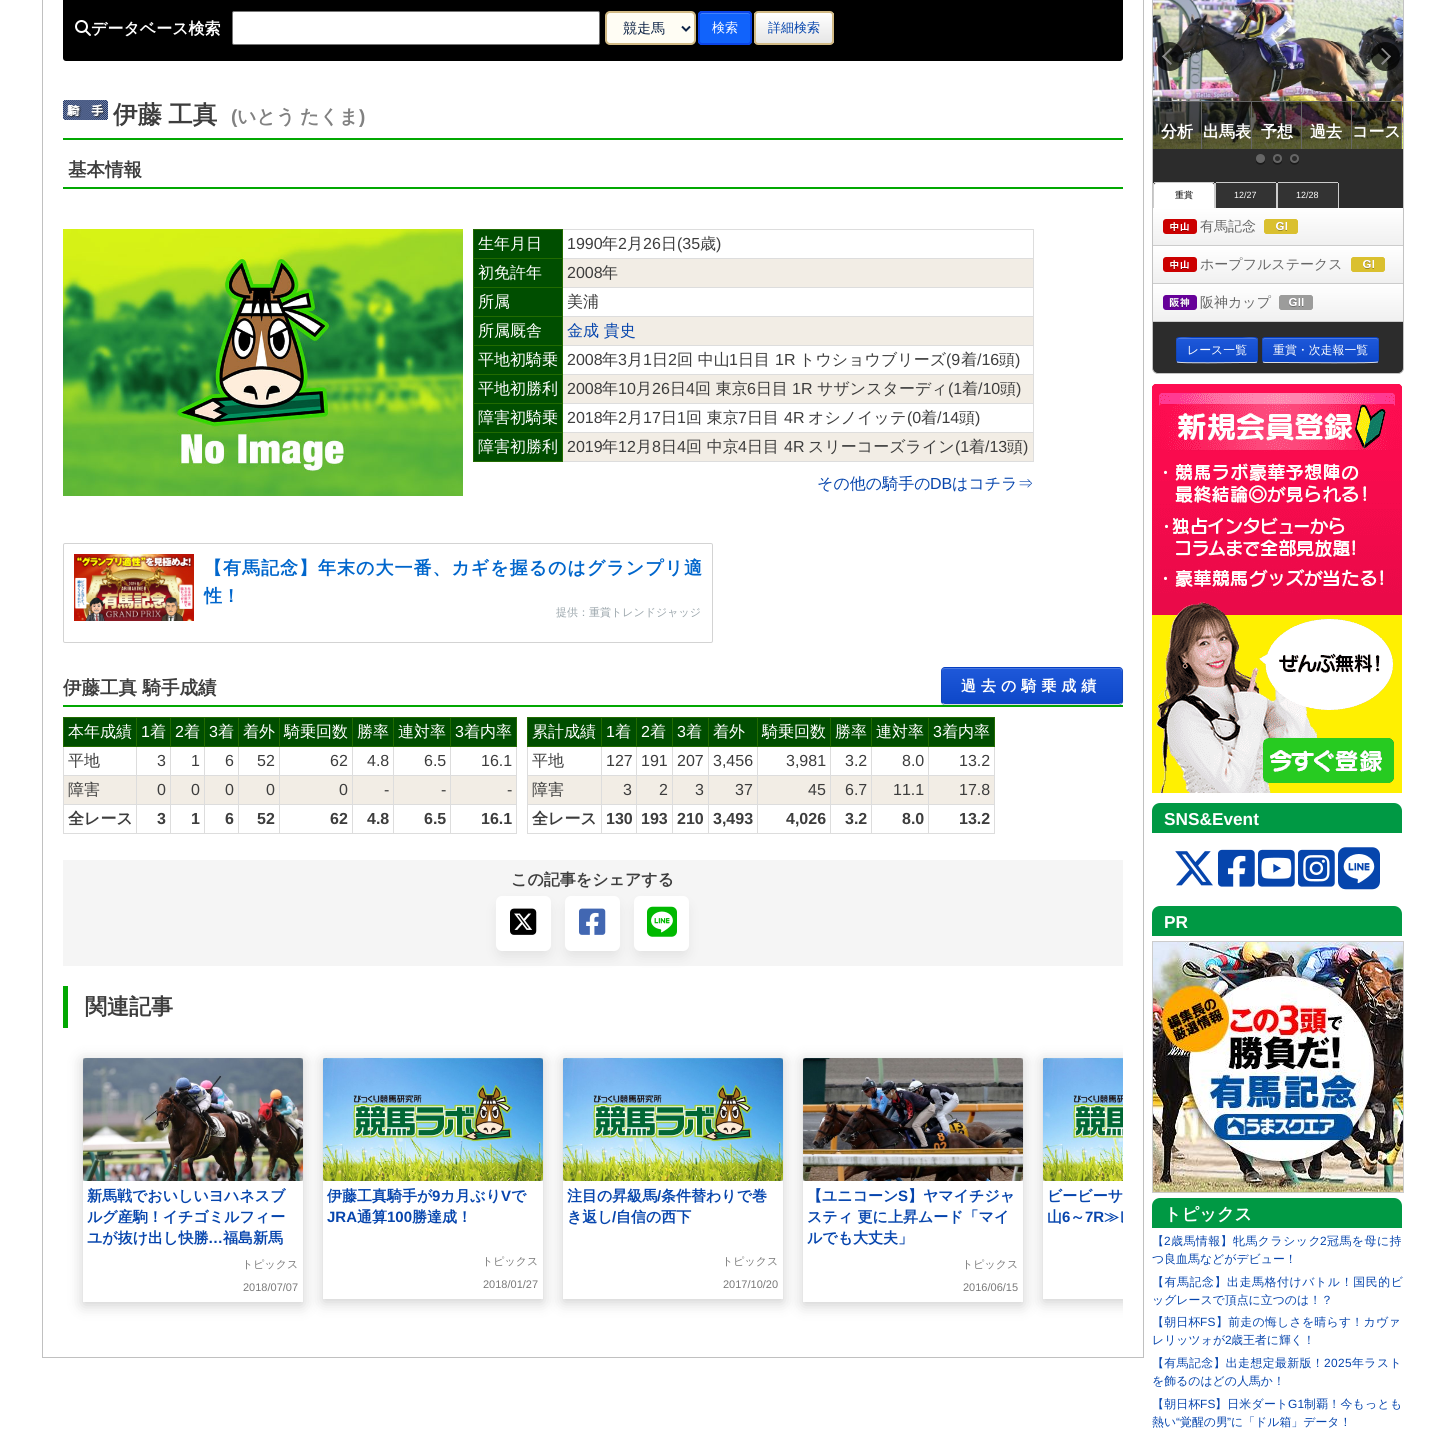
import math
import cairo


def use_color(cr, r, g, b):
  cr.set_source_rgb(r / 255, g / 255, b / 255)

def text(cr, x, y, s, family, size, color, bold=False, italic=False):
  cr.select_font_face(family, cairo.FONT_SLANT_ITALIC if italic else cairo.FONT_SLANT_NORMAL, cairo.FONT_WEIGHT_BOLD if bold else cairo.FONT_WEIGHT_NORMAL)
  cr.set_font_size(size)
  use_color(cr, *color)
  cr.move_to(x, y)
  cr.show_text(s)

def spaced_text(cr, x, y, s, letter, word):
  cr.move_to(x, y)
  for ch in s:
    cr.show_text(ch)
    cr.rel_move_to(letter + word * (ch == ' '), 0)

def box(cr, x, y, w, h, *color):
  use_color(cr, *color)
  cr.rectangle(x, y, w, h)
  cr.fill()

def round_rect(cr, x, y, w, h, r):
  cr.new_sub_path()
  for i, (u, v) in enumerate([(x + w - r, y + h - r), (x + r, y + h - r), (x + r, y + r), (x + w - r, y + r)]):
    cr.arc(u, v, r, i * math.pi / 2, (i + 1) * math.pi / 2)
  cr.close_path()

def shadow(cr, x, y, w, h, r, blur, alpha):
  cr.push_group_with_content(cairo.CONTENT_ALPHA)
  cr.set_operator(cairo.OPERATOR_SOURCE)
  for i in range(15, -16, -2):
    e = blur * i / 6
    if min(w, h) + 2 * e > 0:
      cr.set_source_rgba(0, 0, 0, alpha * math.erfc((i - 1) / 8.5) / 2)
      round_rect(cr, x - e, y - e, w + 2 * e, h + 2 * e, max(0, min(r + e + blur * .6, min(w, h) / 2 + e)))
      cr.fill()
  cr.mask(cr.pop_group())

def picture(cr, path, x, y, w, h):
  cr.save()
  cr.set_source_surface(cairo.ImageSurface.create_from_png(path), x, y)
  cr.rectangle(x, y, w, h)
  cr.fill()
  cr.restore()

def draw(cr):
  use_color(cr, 255, 255, 255)
  cr.paint()
  cr.rectangle(42.5, -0.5, 1101, 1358)
  use_color(cr, 192, 192, 192)
  cr.set_line_width(1)
  cr.stroke()
  use_color(cr, 0, 0, 0)
  round_rect(cr, 63, -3, 1060, 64, 3)
  cr.fill()
  picture(cr, "img_01.png", 75, 20, 16, 16)
  use_color(cr, 255, 255, 255)
  round_rect(cr, 232.5, 11.5, 367, 33, 1.5)
  cr.fill_preserve()
  use_color(cr, 118, 118, 118)
  cr.stroke()
  use_color(cr, 255, 253, 244)
  round_rect(cr, 606, 12, 89, 32, 4)
  cr.fill_preserve()
  use_color(cr, 210, 186, 133)
  cr.set_line_width(2)
  cr.stroke()
  cr.new_path()
  cr.move_to(682, 26.5)
  cr.line_to(686, 30.5)
  cr.line_to(690, 26.5)
  use_color(cr, 12, 34, 69)
  cr.stroke()
  use_color(cr, 17, 99, 251)
  round_rect(cr, 698, 11, 54, 34, 4)
  cr.fill()
  use_color(cr, 65, 130, 252)
  cr.new_path()
  cr.move_to(702, 14)
  cr.line_to(748, 14)
  cr.curve_to(749, 14, 750, 15, 750, 16)
  cr.curve_to(750, 11, 744, 13, 740, 13)
  cr.line_to(710, 13)
  cr.curve_to(706, 13, 700, 11, 700, 16)
  cr.curve_to(700, 15, 701, 14, 702, 14)
  cr.close_path()
  cr.fill()
  round_rect(cr, 699, 12, 52, 32, 3)
  use_color(cr, 12, 69, 233)
  cr.stroke()
  cr.save()
  round_rect(cr, 754, 11, 80, 34, 4)
  cr.clip()
  gradient = cairo.LinearGradient(794, 13, 794, 43)
  gradient.add_color_stop_rgba(0, 1, 1, 1, 1)
  gradient.add_color_stop_rgba(1, 0.902, 0.902, 0.902, 1)
  cr.set_source(gradient)
  cr.rectangle(754, 13, 80, 30)
  cr.fill()
  cr.restore()
  round_rect(cr, 755, 12, 78, 32, 3)
  use_color(cr, 210, 186, 133)
  cr.stroke()
  picture(cr, "img_02.png", 63, 100, 45, 20)
  box(cr, 63, 138, 1060, 2, 1, 168, 1)
  box(cr, 63, 187, 1060, 2, 1, 168, 1)
  picture(cr, "img_03.png", 63, 229, 400, 267)
  box(cr, 563, 229, 471, 1, 221, 221, 221)
  box(cr, 1033, 229, 1, 233, 221, 221, 221)
  box(cr, 563, 461, 471, 1, 221, 221, 221)
  box(cr, 474, 230, 88, 28, 0, 78, 0)
  box(cr, 473, 229, 90, 1, 34, 107, 0)
  box(cr, 473, 258, 90, 1, 34, 107, 0)
  box(cr, 473, 287, 90, 1, 34, 107, 0)
  box(cr, 473, 316, 90, 1, 34, 107, 0)
  box(cr, 473, 345, 90, 1, 34, 107, 0)
  box(cr, 473, 374, 90, 1, 34, 107, 0)
  box(cr, 473, 403, 90, 1, 34, 107, 0)
  box(cr, 473, 432, 90, 1, 34, 107, 0)
  box(cr, 562, 432, 1, 30, 34, 107, 0)
  box(cr, 562, 432, 472, 1, 221, 221, 221)
  box(cr, 562, 403, 1, 30, 34, 107, 0)
  box(cr, 562, 403, 472, 1, 221, 221, 221)
  box(cr, 562, 374, 1, 30, 34, 107, 0)
  box(cr, 562, 374, 472, 1, 221, 221, 221)
  box(cr, 562, 345, 1, 30, 34, 107, 0)
  box(cr, 562, 345, 472, 1, 221, 221, 221)
  box(cr, 562, 316, 1, 30, 34, 107, 0)
  box(cr, 562, 316, 472, 1, 221, 221, 221)
  box(cr, 562, 287, 1, 30, 34, 107, 0)
  box(cr, 562, 287, 472, 1, 221, 221, 221)
  box(cr, 562, 258, 1, 30, 34, 107, 0)
  box(cr, 562, 258, 472, 1, 221, 221, 221)
  box(cr, 562, 229, 1, 30, 34, 107, 0)
  box(cr, 473, 461, 90, 1, 34, 107, 0)
  box(cr, 473, 432, 1, 30, 34, 107, 0)
  box(cr, 473, 403, 1, 30, 34, 107, 0)
  box(cr, 473, 374, 1, 30, 34, 107, 0)
  box(cr, 473, 345, 1, 30, 34, 107, 0)
  box(cr, 473, 316, 1, 30, 34, 107, 0)
  box(cr, 473, 287, 1, 30, 34, 107, 0)
  box(cr, 473, 258, 1, 30, 34, 107, 0)
  box(cr, 473, 229, 1, 30, 34, 107, 0)
  box(cr, 563, 259, 470, 28, 242, 237, 229)
  box(cr, 474, 259, 88, 28, 0, 78, 0)
  box(cr, 474, 288, 88, 28, 0, 78, 0)
  box(cr, 563, 317, 470, 28, 242, 237, 229)
  box(cr, 474, 317, 88, 28, 0, 78, 0)
  box(cr, 474, 346, 88, 28, 0, 78, 0)
  box(cr, 563, 375, 470, 28, 242, 237, 229)
  box(cr, 474, 375, 88, 28, 0, 78, 0)
  box(cr, 474, 404, 88, 28, 0, 78, 0)
  box(cr, 563, 433, 470, 28, 242, 237, 229)
  box(cr, 474, 433, 88, 28, 0, 78, 0)
  round_rect(cr, 63.5, 543.5, 649, 99, 1.5)
  use_color(cr, 211, 211, 211)
  cr.set_line_width(1)
  cr.stroke()
  picture(cr, "img_04.png", 74, 554, 120, 67)
  box(cr, 63, 705, 1060, 2, 1, 168, 1)
  use_color(cr, 0, 0, 0)
  shadow(cr, 941, 668, 182, 38, 4, 1, 0.05)
  use_color(cr, 6, 70, 214)
  round_rect(cr, 941, 667, 182, 38, 4)
  cr.fill()
  cr.save()
  round_rect(cr, 941, 667, 182, 38, 4)
  cr.clip()
  gradient = cairo.LinearGradient(1032, 704, 1032, 668)
  gradient.add_color_stop_rgba(0, 0.31, 0.31, 0.31, 0.1)
  gradient.add_color_stop_rgba(1, 1, 1, 1, 0.1)
  cr.set_source(gradient)
  cr.rectangle(941, 668, 182, 36)
  cr.fill()
  cr.restore()
  use_color(cr, 75, 121, 225)
  cr.new_path()
  cr.move_to(945, 669)
  cr.line_to(1120, 669)
  cr.line_to(1121, 670)
  cr.line_to(1122, 672)
  cr.line_to(1122, 671)
  cr.curve_to(1122, 669, 1121, 668, 1119, 668)
  cr.line_to(945, 668)
  cr.curve_to(943, 668, 942, 669, 942, 671)
  cr.line_to(942, 672)
  cr.curve_to(942, 670, 943, 669, 945, 669)
  cr.close_path()
  cr.fill()
  cr.new_path()
  cr.move_to(1121.5, 703.5)
  cr.line_to(1119, 704.5)
  cr.line_to(944.5, 704.5)
  cr.line_to(942.5, 703.5)
  use_color(cr, 220, 220, 220)
  cr.stroke()
  cr.new_path()
  cr.move_to(942.5, 703.5)
  cr.curve_to(942, 703, 941.5, 702, 941.5, 701)
  cr.line_to(941.5, 671)
  cr.curve_to(941.5, 670, 942, 669, 942.5, 668.5)
  cr.curve_to(943, 668, 944, 667.5, 945, 667.5)
  cr.line_to(1119, 667.5)
  cr.curve_to(1120, 667.5, 1121, 668, 1121.5, 668.5)
  cr.curve_to(1122, 669, 1122.5, 670, 1122.5, 671)
  cr.line_to(1122.5, 701)
  cr.curve_to(1122.5, 702, 1122, 703, 1121.5, 703.5)
  cr.set_source_rgba(0, 0, 0, 0.1)
  cr.stroke()
  box(cr, 516, 747, 1, 87, 221, 221, 221)
  box(cr, 63, 833, 454, 1, 221, 221, 221)
  box(cr, 63, 747, 1, 87, 221, 221, 221)
  box(cr, 64, 718, 72, 28, 0, 78, 0)
  box(cr, 450, 717, 67, 1, 34, 107, 0)
  box(cr, 516, 717, 1, 30, 34, 107, 0)
  box(cr, 450, 775, 67, 1, 221, 221, 221)
  box(cr, 64, 776, 452, 28, 242, 237, 229)
  box(cr, 450, 804, 67, 1, 221, 221, 221)
  box(cr, 450, 804, 1, 30, 221, 221, 221)
  box(cr, 393, 804, 58, 1, 221, 221, 221)
  box(cr, 450, 775, 1, 30, 221, 221, 221)
  box(cr, 393, 775, 58, 1, 221, 221, 221)
  box(cr, 450, 746, 1, 30, 221, 221, 221)
  box(cr, 450, 746, 67, 1, 34, 107, 0)
  box(cr, 450, 717, 1, 30, 34, 107, 0)
  box(cr, 393, 717, 58, 1, 34, 107, 0)
  box(cr, 393, 804, 1, 30, 221, 221, 221)
  box(cr, 352, 804, 42, 1, 221, 221, 221)
  box(cr, 393, 775, 1, 30, 221, 221, 221)
  box(cr, 352, 775, 42, 1, 221, 221, 221)
  box(cr, 393, 746, 1, 30, 221, 221, 221)
  box(cr, 393, 746, 58, 1, 34, 107, 0)
  box(cr, 393, 717, 1, 30, 34, 107, 0)
  box(cr, 352, 717, 42, 1, 34, 107, 0)
  box(cr, 352, 804, 1, 30, 221, 221, 221)
  box(cr, 279, 804, 74, 1, 221, 221, 221)
  box(cr, 352, 775, 1, 30, 221, 221, 221)
  box(cr, 279, 775, 74, 1, 221, 221, 221)
  box(cr, 352, 746, 1, 30, 221, 221, 221)
  box(cr, 352, 746, 42, 1, 34, 107, 0)
  box(cr, 352, 717, 1, 30, 34, 107, 0)
  box(cr, 279, 717, 74, 1, 34, 107, 0)
  box(cr, 279, 804, 1, 30, 221, 221, 221)
  box(cr, 238, 804, 42, 1, 221, 221, 221)
  box(cr, 279, 775, 1, 30, 221, 221, 221)
  box(cr, 238, 775, 42, 1, 221, 221, 221)
  box(cr, 279, 746, 1, 30, 221, 221, 221)
  box(cr, 279, 746, 74, 1, 34, 107, 0)
  box(cr, 279, 717, 1, 30, 34, 107, 0)
  box(cr, 238, 717, 42, 1, 34, 107, 0)
  box(cr, 238, 804, 1, 30, 221, 221, 221)
  box(cr, 204, 804, 35, 1, 221, 221, 221)
  box(cr, 238, 775, 1, 30, 221, 221, 221)
  box(cr, 204, 775, 35, 1, 221, 221, 221)
  box(cr, 238, 746, 1, 30, 221, 221, 221)
  box(cr, 238, 746, 42, 1, 34, 107, 0)
  box(cr, 238, 717, 1, 30, 34, 107, 0)
  box(cr, 204, 717, 35, 1, 34, 107, 0)
  box(cr, 204, 804, 1, 30, 221, 221, 221)
  box(cr, 170, 804, 35, 1, 221, 221, 221)
  box(cr, 204, 775, 1, 30, 221, 221, 221)
  box(cr, 170, 775, 35, 1, 221, 221, 221)
  box(cr, 204, 746, 1, 30, 221, 221, 221)
  box(cr, 204, 746, 35, 1, 34, 107, 0)
  box(cr, 204, 717, 1, 30, 34, 107, 0)
  box(cr, 170, 717, 35, 1, 34, 107, 0)
  box(cr, 170, 804, 1, 30, 221, 221, 221)
  box(cr, 136, 804, 35, 1, 221, 221, 221)
  box(cr, 170, 775, 1, 30, 221, 221, 221)
  box(cr, 136, 775, 35, 1, 221, 221, 221)
  box(cr, 170, 746, 1, 30, 221, 221, 221)
  box(cr, 170, 746, 35, 1, 34, 107, 0)
  box(cr, 170, 717, 1, 30, 34, 107, 0)
  box(cr, 136, 717, 35, 1, 34, 107, 0)
  box(cr, 136, 804, 1, 30, 221, 221, 221)
  box(cr, 63, 804, 74, 1, 221, 221, 221)
  box(cr, 136, 775, 1, 30, 221, 221, 221)
  box(cr, 63, 775, 74, 1, 221, 221, 221)
  box(cr, 136, 746, 1, 30, 221, 221, 221)
  box(cr, 136, 746, 35, 1, 34, 107, 0)
  box(cr, 136, 717, 1, 30, 34, 107, 0)
  box(cr, 63, 717, 74, 1, 34, 107, 0)
  box(cr, 63, 746, 74, 1, 34, 107, 0)
  box(cr, 63, 717, 1, 30, 34, 107, 0)
  box(cr, 137, 718, 33, 28, 0, 78, 0)
  box(cr, 171, 718, 33, 28, 0, 78, 0)
  box(cr, 205, 718, 33, 28, 0, 78, 0)
  box(cr, 239, 718, 40, 28, 0, 78, 0)
  box(cr, 280, 718, 72, 28, 0, 78, 0)
  box(cr, 353, 718, 40, 28, 0, 78, 0)
  box(cr, 394, 718, 56, 28, 0, 78, 0)
  box(cr, 451, 718, 65, 28, 0, 78, 0)
  box(cr, 994, 747, 1, 87, 221, 221, 221)
  box(cr, 527, 833, 468, 1, 221, 221, 221)
  box(cr, 527, 747, 1, 87, 221, 221, 221)
  box(cr, 528, 718, 73, 28, 0, 78, 0)
  box(cr, 928, 717, 67, 1, 34, 107, 0)
  box(cr, 994, 717, 1, 30, 34, 107, 0)
  box(cr, 928, 775, 67, 1, 221, 221, 221)
  box(cr, 528, 776, 466, 28, 242, 237, 229)
  box(cr, 928, 804, 67, 1, 221, 221, 221)
  box(cr, 928, 804, 1, 30, 221, 221, 221)
  box(cr, 871, 804, 58, 1, 221, 221, 221)
  box(cr, 928, 775, 1, 30, 221, 221, 221)
  box(cr, 871, 775, 58, 1, 221, 221, 221)
  box(cr, 928, 746, 1, 30, 221, 221, 221)
  box(cr, 928, 746, 67, 1, 34, 107, 0)
  box(cr, 928, 717, 1, 30, 34, 107, 0)
  box(cr, 871, 717, 58, 1, 34, 107, 0)
  box(cr, 871, 804, 1, 30, 221, 221, 221)
  box(cr, 830, 804, 42, 1, 221, 221, 221)
  box(cr, 871, 775, 1, 30, 221, 221, 221)
  box(cr, 830, 775, 42, 1, 221, 221, 221)
  box(cr, 871, 746, 1, 30, 221, 221, 221)
  box(cr, 871, 746, 58, 1, 34, 107, 0)
  box(cr, 871, 717, 1, 30, 34, 107, 0)
  box(cr, 830, 717, 42, 1, 34, 107, 0)
  box(cr, 830, 804, 1, 30, 221, 221, 221)
  box(cr, 757, 804, 74, 1, 221, 221, 221)
  box(cr, 830, 775, 1, 30, 221, 221, 221)
  box(cr, 757, 775, 74, 1, 221, 221, 221)
  box(cr, 830, 746, 1, 30, 221, 221, 221)
  box(cr, 830, 746, 42, 1, 34, 107, 0)
  box(cr, 830, 717, 1, 30, 34, 107, 0)
  box(cr, 757, 717, 74, 1, 34, 107, 0)
  box(cr, 757, 804, 1, 30, 221, 221, 221)
  box(cr, 708, 804, 50, 1, 221, 221, 221)
  box(cr, 757, 775, 1, 30, 221, 221, 221)
  box(cr, 708, 775, 50, 1, 221, 221, 221)
  box(cr, 757, 746, 1, 30, 221, 221, 221)
  box(cr, 757, 746, 74, 1, 34, 107, 0)
  box(cr, 757, 717, 1, 30, 34, 107, 0)
  box(cr, 708, 717, 50, 1, 34, 107, 0)
  box(cr, 708, 804, 1, 30, 221, 221, 221)
  box(cr, 672, 804, 37, 1, 221, 221, 221)
  box(cr, 708, 775, 1, 30, 221, 221, 221)
  box(cr, 672, 775, 37, 1, 221, 221, 221)
  box(cr, 708, 746, 1, 30, 221, 221, 221)
  box(cr, 708, 746, 50, 1, 34, 107, 0)
  box(cr, 708, 717, 1, 30, 34, 107, 0)
  box(cr, 672, 717, 37, 1, 34, 107, 0)
  box(cr, 672, 804, 1, 30, 221, 221, 221)
  box(cr, 636, 804, 37, 1, 221, 221, 221)
  box(cr, 672, 775, 1, 30, 221, 221, 221)
  box(cr, 636, 775, 37, 1, 221, 221, 221)
  box(cr, 672, 746, 1, 30, 221, 221, 221)
  box(cr, 672, 746, 37, 1, 34, 107, 0)
  box(cr, 672, 717, 1, 30, 34, 107, 0)
  box(cr, 636, 717, 37, 1, 34, 107, 0)
  box(cr, 636, 804, 1, 30, 221, 221, 221)
  box(cr, 601, 804, 36, 1, 221, 221, 221)
  box(cr, 636, 775, 1, 30, 221, 221, 221)
  box(cr, 601, 775, 36, 1, 221, 221, 221)
  box(cr, 636, 746, 1, 30, 221, 221, 221)
  box(cr, 636, 746, 37, 1, 34, 107, 0)
  box(cr, 636, 717, 1, 30, 34, 107, 0)
  box(cr, 601, 717, 36, 1, 34, 107, 0)
  box(cr, 601, 804, 1, 30, 221, 221, 221)
  box(cr, 527, 804, 75, 1, 221, 221, 221)
  box(cr, 601, 775, 1, 30, 221, 221, 221)
  box(cr, 527, 775, 75, 1, 221, 221, 221)
  box(cr, 601, 746, 1, 30, 221, 221, 221)
  box(cr, 601, 746, 36, 1, 34, 107, 0)
  box(cr, 601, 717, 1, 30, 34, 107, 0)
  box(cr, 527, 717, 75, 1, 34, 107, 0)
  box(cr, 527, 746, 75, 1, 34, 107, 0)
  box(cr, 527, 717, 1, 30, 34, 107, 0)
  box(cr, 602, 718, 34, 28, 0, 78, 0)
  box(cr, 637, 718, 35, 28, 0, 78, 0)
  box(cr, 673, 718, 35, 28, 0, 78, 0)
  box(cr, 709, 718, 48, 28, 0, 78, 0)
  box(cr, 758, 718, 72, 28, 0, 78, 0)
  box(cr, 831, 718, 40, 28, 0, 78, 0)
  box(cr, 872, 718, 56, 28, 0, 78, 0)
  box(cr, 929, 718, 65, 28, 0, 78, 0)
  box(cr, 63, 860, 1060, 106, 245, 245, 245)
  use_color(cr, 0, 0, 0)
  shadow(cr, 500, 907, 47, 47, 2, 7.5, 0.1)
  use_color(cr, 255, 255, 255)
  round_rect(cr, 496, 896, 55, 55, 6)
  cr.fill()
  picture(cr, "img_05.png", 510, 908, 27, 27)
  use_color(cr, 0, 0, 0)
  shadow(cr, 569, 907, 47, 47, 2, 7.5, 0.1)
  use_color(cr, 255, 255, 255)
  round_rect(cr, 565, 896, 55, 55, 6)
  cr.fill()
  picture(cr, "img_06.png", 579, 908, 27, 27)
  use_color(cr, 0, 0, 0)
  shadow(cr, 638, 907, 47, 47, 2, 7.5, 0.1)
  use_color(cr, 255, 255, 255)
  round_rect(cr, 634, 896, 55, 55, 6)
  cr.fill()
  picture(cr, "img_07.png", 647, 906, 30, 31)
  box(cr, 63, 986, 5, 42, 1, 168, 1)
  cr.save()
  cr.set_fill_rule(cairo.FILL_RULE_EVEN_ODD)
  cr.new_path()
  cr.move_to(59, 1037)
  cr.line_to(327, 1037)
  cr.line_to(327, 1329)
  cr.line_to(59, 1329)
  cr.close_path()
  cr.move_to(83, 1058)
  cr.line_to(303, 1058)
  cr.line_to(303, 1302)
  cr.line_to(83, 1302)
  cr.close_path()
  cr.clip()
  use_color(cr, 0, 0, 0)
  shadow(cr, 83, 1061, 220, 244, 0, 7.5, 0.2)
  cr.restore()
  box(cr, 83, 1058, 220, 123, 204, 204, 204)
  picture(cr, "img_08.png", 83, 1058, 220, 123)
  cr.save()
  cr.set_fill_rule(cairo.FILL_RULE_EVEN_ODD)
  cr.new_path()
  cr.move_to(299, 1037)
  cr.line_to(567, 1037)
  cr.line_to(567, 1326)
  cr.line_to(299, 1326)
  cr.close_path()
  cr.move_to(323, 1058)
  cr.line_to(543, 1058)
  cr.line_to(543, 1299)
  cr.line_to(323, 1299)
  cr.close_path()
  cr.clip()
  use_color(cr, 0, 0, 0)
  shadow(cr, 323, 1061, 220, 241, 0, 7.5, 0.2)
  cr.restore()
  box(cr, 323, 1058, 220, 123, 204, 204, 204)
  picture(cr, "img_09.png", 323, 1058, 220, 123)
  cr.save()
  cr.set_fill_rule(cairo.FILL_RULE_EVEN_ODD)
  cr.new_path()
  cr.move_to(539, 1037)
  cr.line_to(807, 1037)
  cr.line_to(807, 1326)
  cr.line_to(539, 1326)
  cr.close_path()
  cr.move_to(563, 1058)
  cr.line_to(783, 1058)
  cr.line_to(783, 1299)
  cr.line_to(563, 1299)
  cr.close_path()
  cr.clip()
  use_color(cr, 0, 0, 0)
  shadow(cr, 563, 1061, 220, 241, 0, 7.5, 0.2)
  cr.restore()
  box(cr, 563, 1058, 220, 123, 204, 204, 204)
  picture(cr, "img_09.png", 563, 1058, 220, 123)
  cr.save()
  cr.set_fill_rule(cairo.FILL_RULE_EVEN_ODD)
  cr.new_path()
  cr.move_to(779, 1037)
  cr.line_to(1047, 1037)
  cr.line_to(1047, 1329)
  cr.line_to(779, 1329)
  cr.close_path()
  cr.move_to(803, 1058)
  cr.line_to(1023, 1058)
  cr.line_to(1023, 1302)
  cr.line_to(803, 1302)
  cr.close_path()
  cr.clip()
  use_color(cr, 0, 0, 0)
  shadow(cr, 803, 1061, 220, 244, 0, 7.5, 0.2)
  cr.restore()
  box(cr, 803, 1058, 220, 123, 204, 204, 204)
  picture(cr, "img_10.png", 803, 1058, 220, 123)
  cr.rectangle(1152.5, 941.5, 251, 251)
  cr.stroke()
  picture(cr, "img_23.png", 1153, 942, 250, 250)
  use_color(cr, 0, 153, 68)
  cr.new_path()
  cr.move_to(1160, 1198)
  cr.line_to(1394, 1198)
  cr.curve_to(1398.5, 1198, 1402, 1201.5, 1402, 1206)
  cr.line_to(1402, 1228)
  cr.line_to(1152, 1228)
  cr.line_to(1152, 1206)
  cr.curve_to(1152, 1201.5, 1155.5, 1198, 1160, 1198)
  cr.close_path()
  cr.fill()
  cr.save()
  cr.rectangle(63, 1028, 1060, 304)
  cr.clip()
  cr.set_fill_rule(cairo.FILL_RULE_EVEN_ODD)
  cr.new_path()
  cr.move_to(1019, 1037)
  cr.line_to(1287, 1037)
  cr.line_to(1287, 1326)
  cr.line_to(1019, 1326)
  cr.close_path()
  cr.move_to(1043, 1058)
  cr.line_to(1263, 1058)
  cr.line_to(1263, 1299)
  cr.line_to(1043, 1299)
  cr.close_path()
  cr.clip()
  use_color(cr, 0, 0, 0)
  shadow(cr, 1043, 1061, 220, 241, 0, 7.5, 0.2)
  cr.restore()
  box(cr, 1043, 1058, 3, 123, 204, 204, 204)
  picture(cr, "img_11.png", 1043, 1058, 80, 123)
  use_color(cr, 44, 44, 44)
  cr.new_path()
  cr.move_to(1155, -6.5)
  cr.line_to(1401, -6.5)
  cr.curve_to(1402.5, -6.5, 1403.5, -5.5, 1403.5, -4)
  cr.line_to(1403.5, 368)
  cr.curve_to(1403.5, 371, 1401, 373.5, 1398, 373.5)
  cr.line_to(1158, 373.5)
  cr.curve_to(1155, 373.5, 1152.5, 371, 1152.5, 368)
  cr.line_to(1152.5, -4)
  cr.curve_to(1152.5, -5.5, 1153.5, -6.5, 1155, -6.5)
  cr.close_path()
  cr.fill_preserve()
  use_color(cr, 195, 195, 195)
  cr.stroke()
  picture(cr, "img_12.png", 1153, 0, 250, 149)
  cr.set_source_rgba(0, 0, 0, 0.7)
  cr.arc(1169.5, 56.5, 14.5, 0, 2 * math.pi)
  cr.fill()
  use_color(cr, 140, 140, 140)
  cr.new_path()
  cr.move_to(1170.5, 65)
  cr.line_to(1162, 56.5)
  cr.line_to(1163.5, 55)
  cr.line_to(1172, 63.5)
  cr.close_path()
  cr.fill()
  cr.new_path()
  cr.move_to(1163.5, 57.5)
  cr.line_to(1162, 56.5)
  cr.line_to(1170.5, 48)
  cr.line_to(1172, 49)
  cr.close_path()
  cr.fill()
  cr.set_source_rgba(0, 0, 0, 0.7)
  cr.arc(1385.5, 56.5, 14.5, 0, 2 * math.pi)
  cr.fill()
  use_color(cr, 140, 140, 140)
  cr.new_path()
  cr.move_to(1382.5, 48)
  cr.line_to(1391, 56.5)
  cr.line_to(1389.5, 57.5)
  cr.line_to(1381, 49)
  cr.close_path()
  cr.fill()
  cr.new_path()
  cr.move_to(1389.5, 55)
  cr.line_to(1391, 56.5)
  cr.line_to(1382.5, 65)
  cr.line_to(1381, 63.5)
  cr.close_path()
  cr.fill()
  cr.set_source_rgba(0, 0, 0, 0.6)
  cr.rectangle(1153, 102, 48, 47)
  cr.fill()
  box(cr, 1153, 101, 249, 1, 102, 102, 102)
  box(cr, 1201, 101, 1, 48, 102, 102, 102)
  cr.set_source_rgba(0, 0, 0, 0.6)
  cr.rectangle(1202, 102, 49, 47)
  cr.fill()
  box(cr, 1251, 101, 1, 48, 102, 102, 102)
  cr.set_source_rgba(0, 0, 0, 0.6)
  cr.rectangle(1252, 102, 49, 47)
  cr.fill()
  box(cr, 1301, 101, 1, 48, 102, 102, 102)
  cr.set_source_rgba(0, 0, 0, 0.6)
  cr.rectangle(1302, 102, 49, 47)
  cr.fill()
  box(cr, 1351, 101, 1, 48, 102, 102, 102)
  cr.set_source_rgba(0, 0, 0, 0.6)
  cr.rectangle(1352, 102, 49, 47)
  cr.fill()
  box(cr, 1401, 101, 1, 48, 102, 102, 102)
  use_color(cr, 26, 26, 26)
  cr.new_path()
  cr.move_to(1256, 159.5)
  cr.curve_to(1254.5, 166.5, 1266.5, 166.5, 1265, 159.5)
  cr.curve_to(1264, 164, 1257, 164, 1256, 159.5)
  cr.close_path()
  cr.fill()
  use_color(cr, 102, 102, 102)
  cr.arc(1260.5, 158.5, 3.5, 0, 2 * math.pi)
  cr.fill_preserve()
  cr.set_line_width(2)
  cr.stroke()
  use_color(cr, 26, 26, 26)
  cr.new_path()
  cr.move_to(1273, 159.5)
  cr.curve_to(1271.5, 166.5, 1283.5, 166.5, 1282, 159.5)
  cr.curve_to(1281, 164, 1274, 164, 1273, 159.5)
  cr.close_path()
  cr.fill()
  cr.arc(1277.5, 158.5, 3.5, 0, 2 * math.pi)
  use_color(cr, 102, 102, 102)
  cr.stroke()
  use_color(cr, 26, 26, 26)
  cr.new_path()
  cr.move_to(1290, 159.5)
  cr.curve_to(1288.5, 166.5, 1300.5, 166.5, 1299, 159.5)
  cr.curve_to(1298, 164, 1291, 164, 1290, 159.5)
  cr.close_path()
  cr.fill()
  cr.arc(1294.5, 158.5, 3.5, 0, 2 * math.pi)
  use_color(cr, 102, 102, 102)
  cr.stroke()
  box(cr, 1154, 182, 60, 1, 204, 204, 204)
  box(cr, 1214, 183, 2, 25, 204, 204, 204)
  box(cr, 1153, 183, 1, 25, 204, 204, 204)
  use_color(cr, 255, 255, 255)
  cr.new_path()
  cr.move_to(1156, 183)
  cr.line_to(1212, 183)
  cr.curve_to(1213, 183, 1214, 184, 1214, 185)
  cr.line_to(1214, 208)
  cr.line_to(1154, 208)
  cr.line_to(1154, 185)
  cr.curve_to(1154, 184, 1155, 183, 1156, 183)
  cr.close_path()
  cr.fill()
  box(cr, 1216, 182, 60, 1, 204, 204, 204)
  box(cr, 1276, 183, 2, 25, 204, 204, 204)
  use_color(cr, 51, 51, 51)
  cr.new_path()
  cr.move_to(1218, 183)
  cr.line_to(1274, 183)
  cr.curve_to(1275, 183, 1276, 184, 1276, 185)
  cr.line_to(1276, 208)
  cr.line_to(1216, 208)
  cr.line_to(1216, 185)
  cr.curve_to(1216, 184, 1217, 183, 1218, 183)
  cr.close_path()
  cr.fill()
  box(cr, 1278, 182, 60, 1, 204, 204, 204)
  box(cr, 1338, 183, 1, 25, 204, 204, 204)
  use_color(cr, 51, 51, 51)
  cr.new_path()
  cr.move_to(1280, 183)
  cr.line_to(1336, 183)
  cr.curve_to(1337, 183, 1338, 184, 1338, 185)
  cr.line_to(1338, 208)
  cr.line_to(1278, 208)
  cr.line_to(1278, 185)
  cr.curve_to(1278, 184, 1279, 183, 1280, 183)
  cr.close_path()
  cr.fill()
  box(cr, 1153, 321, 250, 1, 204, 204, 204)
  gradient = cairo.LinearGradient(1278, 208, 1278, 245)
  gradient.add_color_stop_rgba(0, 1, 1, 1, 1)
  gradient.add_color_stop_rgba(1, 0.941, 0.941, 0.941, 1)
  cr.set_source(gradient)
  cr.rectangle(1153, 208, 250, 37)
  cr.fill()
  picture(cr, "img_13.png", 1163, 219, 34, 15)
  picture(cr, "img_14.png", 1264, 219, 34, 15)
  gradient = cairo.LinearGradient(1278, 246, 1278, 283)
  gradient.add_color_stop_rgba(0, 1, 1, 1, 1)
  gradient.add_color_stop_rgba(1, 0.941, 0.941, 0.941, 1)
  cr.set_source(gradient)
  cr.rectangle(1153, 246, 250, 37)
  cr.fill()
  box(cr, 1153, 245, 250, 1, 204, 204, 204)
  picture(cr, "img_13.png", 1163, 257, 34, 15)
  picture(cr, "img_14.png", 1351, 257, 34, 15)
  gradient = cairo.LinearGradient(1278, 284, 1278, 321)
  gradient.add_color_stop_rgba(0, 1, 1, 1, 1)
  gradient.add_color_stop_rgba(1, 0.941, 0.941, 0.941, 1)
  cr.set_source(gradient)
  cr.rectangle(1153, 284, 250, 37)
  cr.fill()
  box(cr, 1153, 283, 250, 1, 204, 204, 204)
  picture(cr, "img_15.png", 1163, 295, 34, 15)
  picture(cr, "img_16.png", 1279, 295, 34, 15)
  use_color(cr, 6, 70, 214)
  round_rect(cr, 1176, 337, 82, 26, 3)
  cr.fill()
  gradient = cairo.LinearGradient(1217, 362, 1217, 338)
  gradient.add_color_stop_rgba(0, 0.31, 0.31, 0.31, 0.1)
  gradient.add_color_stop_rgba(1, 1, 1, 1, 0.1)
  cr.set_source(gradient)
  cr.rectangle(1176, 338, 82, 24)
  cr.fill()
  cr.set_source_rgba(1, 1, 1, 0.2)
  cr.new_path()
  cr.move_to(1179, 339)
  cr.line_to(1255, 339)
  cr.curve_to(1256, 339, 1257, 340, 1257, 341)
  cr.curve_to(1257, 335, 1245, 338, 1242, 338)
  cr.line_to(1192, 338)
  cr.curve_to(1189, 338, 1177, 335, 1177, 341)
  cr.curve_to(1177, 340, 1178, 339, 1179, 339)
  cr.close_path()
  cr.fill()
  cr.new_path()
  cr.move_to(1257, 362)
  cr.line_to(1255, 362.5)
  cr.line_to(1242.5, 362.5)
  cr.curve_to(1235.5, 362.5, 1179.5, 363.5, 1177.5, 362)
  cr.line_to(1177, 362)
  use_color(cr, 220, 220, 220)
  cr.set_line_width(1)
  cr.stroke()
  cr.new_path()
  cr.move_to(1177, 362)
  cr.curve_to(1175.5, 360, 1176.5, 355.5, 1176.5, 353.5)
  cr.curve_to(1176.5, 334.5, 1173, 337.5, 1191.5, 337.5)
  cr.line_to(1242.5, 337.5)
  cr.curve_to(1259.5, 337.5, 1257.5, 334.5, 1257.5, 350)
  cr.curve_to(1257.5, 352.5, 1258.5, 360, 1257, 362)
  cr.set_source_rgba(0, 0, 0, 0.1)
  cr.stroke()
  use_color(cr, 6, 70, 214)
  round_rect(cr, 1262, 337, 117, 26, 3)
  cr.fill()
  gradient = cairo.LinearGradient(1321, 362, 1321, 338)
  gradient.add_color_stop_rgba(0, 0.31, 0.31, 0.31, 0.1)
  gradient.add_color_stop_rgba(1, 1, 1, 1, 0.1)
  cr.set_source(gradient)
  cr.rectangle(1262, 338, 117, 24)
  cr.fill()
  use_color(cr, 75, 121, 225)
  cr.new_path()
  cr.move_to(1265, 339)
  cr.line_to(1376, 339)
  cr.curve_to(1377, 339, 1378, 340, 1378, 341)
  cr.curve_to(1378, 340, 1378, 338, 1376, 338)
  cr.line_to(1265, 338)
  cr.curve_to(1263, 338, 1263, 340, 1263, 341)
  cr.curve_to(1263, 340, 1264, 339, 1265, 339)
  cr.close_path()
  cr.fill()
  cr.new_path()
  cr.move_to(1378, 362)
  cr.line_to(1377.5, 362)
  cr.curve_to(1375.5, 363.5, 1293, 362.5, 1283.5, 362.5)
  cr.line_to(1265, 362.5)
  cr.line_to(1263, 362)
  use_color(cr, 220, 220, 220)
  cr.stroke()
  cr.new_path()
  cr.move_to(1263, 362)
  cr.curve_to(1261.5, 360, 1262.5, 352.5, 1262.5, 350)
  cr.line_to(1262.5, 343.5)
  cr.curve_to(1262.5, 341.5, 1262, 337.5, 1265, 337.5)
  cr.line_to(1376, 337.5)
  cr.curve_to(1379, 337.5, 1378.5, 341.5, 1378.5, 343.5)
  cr.line_to(1378.5, 350)
  cr.curve_to(1378.5, 352.5, 1379.5, 360, 1378, 362)
  cr.set_source_rgba(0, 0, 0, 0.1)
  cr.stroke()
  picture(cr, "img_17.png", 1152, 384, 250, 409)
  use_color(cr, 0, 153, 68)
  cr.new_path()
  cr.move_to(1160, 803)
  cr.line_to(1394, 803)
  cr.curve_to(1398.5, 803, 1402, 806.5, 1402, 811)
  cr.line_to(1402, 833)
  cr.line_to(1152, 833)
  cr.line_to(1152, 811)
  cr.curve_to(1152, 806.5, 1155.5, 803, 1160, 803)
  cr.close_path()
  cr.fill()
  picture(cr, "img_18.png", 1175, 851, 38, 35)
  picture(cr, "img_19.png", 1218, 849, 37, 38)
  picture(cr, "img_20.png", 1258, 849, 37, 38)
  picture(cr, "img_21.png", 1298, 849, 37, 38)
  picture(cr, "img_22.png", 1338, 847, 42, 43)
  cr.new_path()
  cr.move_to(1160, 906)
  cr.line_to(1394, 906)
  cr.curve_to(1398.5, 906, 1402, 909.5, 1402, 914)
  cr.line_to(1402, 936)
  cr.line_to(1152, 936)
  cr.line_to(1152, 914)
  cr.curve_to(1152, 909.5, 1155.5, 906, 1160, 906)
  cr.close_path()
  cr.fill()
  text(cr, 91, 34, "データベース検索", "WenQuanYi Zen Hei", 16, (255, 255, 255), bold=True)
  text(cr, 623, 33, "競走馬", "WenQuanYi Zen Hei Medium", 14, (12, 34, 69))
  text(cr, 712, 32, "検索", "WenQuanYi Zen Hei Medium", 13, (255, 255, 255))
  text(cr, 768, 32, "詳細検索", "WenQuanYi Zen Hei Medium", 13, (6, 69, 173))
  cr.select_font_face("WenQuanYi Zen Hei", cairo.FONT_SLANT_NORMAL, cairo.FONT_WEIGHT_BOLD)
  cr.set_font_size(24.5)
  use_color(cr, 61, 61, 61)
  spaced_text(cr, 113, 123, "伊藤 工真", 0, -1)
  text(cr, 231, 123, "(", "Liberation Sans", 19, (129, 129, 129), bold=True)
  text(cr, 237, 123, "いとう", "WenQuanYi Zen Hei", 19, (129, 129, 129), bold=True)
  text(cr, 300, 123, "たくま", "WenQuanYi Zen Hei", 19, (129, 129, 129), bold=True)
  text(cr, 359, 123, ")", "Liberation Sans", 19, (129, 129, 129), bold=True)
  text(cr, 68, 176, "基本情報", "WenQuanYi Zen Hei", 18.5, (61, 61, 61), bold=True)
  text(cr, 478, 249, "生年月日", "WenQuanYi Zen Hei Medium", 16, (255, 255, 255))
  text(cr, 567, 249, "1990", "Liberation Sans", 16, (61, 61, 61))
  text(cr, 602, 249, "年", "WenQuanYi Zen Hei Medium", 16, (61, 61, 61))
  text(cr, 618, 249, "2", "Liberation Sans", 16, (61, 61, 61))
  text(cr, 627, 249, "月", "WenQuanYi Zen Hei Medium", 16, (61, 61, 61))
  text(cr, 643, 249, "26", "Liberation Sans", 16, (61, 61, 61))
  text(cr, 661, 249, "日", "WenQuanYi Zen Hei Medium", 16, (61, 61, 61))
  text(cr, 677, 249, "(35", "Liberation Sans", 16, (61, 61, 61))
  text(cr, 700, 249, "歳", "WenQuanYi Zen Hei Medium", 16, (61, 61, 61))
  text(cr, 716, 249, ")", "Liberation Sans", 16, (61, 61, 61))
  text(cr, 478, 278, "初免許年", "WenQuanYi Zen Hei Medium", 16, (255, 255, 255))
  text(cr, 567, 278, "2008", "Liberation Sans", 16, (61, 61, 61))
  text(cr, 602, 278, "年", "WenQuanYi Zen Hei Medium", 16, (61, 61, 61))
  text(cr, 478, 307, "所属", "WenQuanYi Zen Hei Medium", 16, (255, 255, 255))
  text(cr, 567, 307, "美浦", "WenQuanYi Zen Hei Medium", 16, (61, 61, 61))
  text(cr, 478, 336, "所属厩舎", "WenQuanYi Zen Hei Medium", 16, (255, 255, 255))
  text(cr, 567, 336, "金成 貴史", "WenQuanYi Zen Hei Medium", 16, (6, 69, 173))
  text(cr, 478, 365, "平地初騎乗", "WenQuanYi Zen Hei Medium", 16, (255, 255, 255))
  text(cr, 567, 365, "2008", "Liberation Sans", 16, (61, 61, 61))
  text(cr, 602, 365, "年", "WenQuanYi Zen Hei Medium", 16, (61, 61, 61))
  text(cr, 618, 365, "3", "Liberation Sans", 16, (61, 61, 61))
  text(cr, 627, 365, "月", "WenQuanYi Zen Hei Medium", 16, (61, 61, 61))
  text(cr, 643, 365, "1", "Liberation Sans", 16, (61, 61, 61))
  text(cr, 652, 365, "日", "WenQuanYi Zen Hei Medium", 16, (61, 61, 61))
  text(cr, 668, 365, "2", "Liberation Sans", 16, (61, 61, 61))
  text(cr, 677, 365, "回 中山", "WenQuanYi Zen Hei Medium", 16, (61, 61, 61))
  text(cr, 729, 365, "1", "Liberation Sans", 16, (61, 61, 61))
  text(cr, 738, 365, "日目", "WenQuanYi Zen Hei Medium", 16, (61, 61, 61))
  text(cr, 775, 365, "1R", "Liberation Sans", 16, (61, 61, 61))
  text(cr, 799, 365, "トウショウブリーズ", "WenQuanYi Zen Hei Medium", 16, (61, 61, 61))
  text(cr, 946, 365, "(9", "Liberation Sans", 16, (61, 61, 61))
  text(cr, 961, 365, "着", "WenQuanYi Zen Hei Medium", 16, (61, 61, 61))
  text(cr, 977, 365, "/16", "Liberation Sans", 16, (61, 61, 61))
  text(cr, 999, 365, "頭", "WenQuanYi Zen Hei Medium", 16, (61, 61, 61))
  text(cr, 1015, 365, ")", "Liberation Sans", 16, (61, 61, 61))
  text(cr, 478, 394, "平地初勝利", "WenQuanYi Zen Hei Medium", 16, (255, 255, 255))
  text(cr, 567, 394, "2008", "Liberation Sans", 16, (61, 61, 61))
  text(cr, 602, 394, "年", "WenQuanYi Zen Hei Medium", 16, (61, 61, 61))
  text(cr, 618, 394, "10", "Liberation Sans", 16, (61, 61, 61))
  text(cr, 636, 394, "月", "WenQuanYi Zen Hei Medium", 16, (61, 61, 61))
  text(cr, 652, 394, "26", "Liberation Sans", 16, (61, 61, 61))
  text(cr, 670, 394, "日", "WenQuanYi Zen Hei Medium", 16, (61, 61, 61))
  text(cr, 686, 394, "4", "Liberation Sans", 16, (61, 61, 61))
  text(cr, 695, 394, "回 東京", "WenQuanYi Zen Hei Medium", 16, (61, 61, 61))
  text(cr, 747, 394, "6", "Liberation Sans", 16, (61, 61, 61))
  text(cr, 756, 394, "日目", "WenQuanYi Zen Hei Medium", 16, (61, 61, 61))
  text(cr, 792, 394, "1R", "Liberation Sans", 16, (61, 61, 61))
  text(cr, 817, 394, "サザンスターディ", "WenQuanYi Zen Hei Medium", 16, (61, 61, 61))
  text(cr, 948, 394, "(1", "Liberation Sans", 16, (61, 61, 61))
  text(cr, 962, 394, "着", "WenQuanYi Zen Hei Medium", 16, (61, 61, 61))
  text(cr, 978, 394, "/10", "Liberation Sans", 16, (61, 61, 61))
  text(cr, 1000, 394, "頭", "WenQuanYi Zen Hei Medium", 16, (61, 61, 61))
  text(cr, 1016, 394, ")", "Liberation Sans", 16, (61, 61, 61))
  text(cr, 478, 423, "障害初騎乗", "WenQuanYi Zen Hei Medium", 16, (255, 255, 255))
  text(cr, 567, 423, "2018", "Liberation Sans", 16, (61, 61, 61))
  text(cr, 602, 423, "年", "WenQuanYi Zen Hei Medium", 16, (61, 61, 61))
  text(cr, 618, 423, "2", "Liberation Sans", 16, (61, 61, 61))
  text(cr, 627, 423, "月", "WenQuanYi Zen Hei Medium", 16, (61, 61, 61))
  text(cr, 643, 423, "17", "Liberation Sans", 16, (61, 61, 61))
  text(cr, 661, 423, "日", "WenQuanYi Zen Hei Medium", 16, (61, 61, 61))
  text(cr, 677, 423, "1", "Liberation Sans", 16, (61, 61, 61))
  text(cr, 686, 423, "回 東京", "WenQuanYi Zen Hei Medium", 16, (61, 61, 61))
  text(cr, 738, 423, "7", "Liberation Sans", 16, (61, 61, 61))
  text(cr, 747, 423, "日目", "WenQuanYi Zen Hei Medium", 16, (61, 61, 61))
  text(cr, 784, 423, "4R", "Liberation Sans", 16, (61, 61, 61))
  text(cr, 808, 423, "オシノイッテ", "WenQuanYi Zen Hei Medium", 16, (61, 61, 61))
  text(cr, 907, 423, "(0", "Liberation Sans", 16, (61, 61, 61))
  text(cr, 921, 423, "着", "WenQuanYi Zen Hei Medium", 16, (61, 61, 61))
  text(cr, 937, 423, "/14", "Liberation Sans", 16, (61, 61, 61))
  text(cr, 959, 423, "頭", "WenQuanYi Zen Hei Medium", 16, (61, 61, 61))
  text(cr, 975, 423, ")", "Liberation Sans", 16, (61, 61, 61))
  text(cr, 478, 452, "障害初勝利", "WenQuanYi Zen Hei Medium", 16, (255, 255, 255))
  text(cr, 567, 452, "2019", "Liberation Sans", 16, (61, 61, 61))
  text(cr, 602, 452, "年", "WenQuanYi Zen Hei Medium", 16, (61, 61, 61))
  text(cr, 618, 452, "12", "Liberation Sans", 16, (61, 61, 61))
  text(cr, 636, 452, "月", "WenQuanYi Zen Hei Medium", 16, (61, 61, 61))
  text(cr, 652, 452, "8", "Liberation Sans", 16, (61, 61, 61))
  text(cr, 661, 452, "日", "WenQuanYi Zen Hei Medium", 16, (61, 61, 61))
  text(cr, 677, 452, "4", "Liberation Sans", 16, (61, 61, 61))
  text(cr, 686, 452, "回 中京", "WenQuanYi Zen Hei Medium", 16, (61, 61, 61))
  text(cr, 738, 452, "4", "Liberation Sans", 16, (61, 61, 61))
  text(cr, 747, 452, "日目", "WenQuanYi Zen Hei Medium", 16, (61, 61, 61))
  text(cr, 784, 452, "4R", "Liberation Sans", 16, (61, 61, 61))
  text(cr, 808, 452, "スリーコーズライン", "WenQuanYi Zen Hei Medium", 16, (61, 61, 61))
  text(cr, 955, 452, "(1", "Liberation Sans", 16, (61, 61, 61))
  text(cr, 969, 452, "着", "WenQuanYi Zen Hei Medium", 16, (61, 61, 61))
  text(cr, 985, 452, "/13", "Liberation Sans", 16, (61, 61, 61))
  text(cr, 1007, 452, "頭", "WenQuanYi Zen Hei Medium", 16, (61, 61, 61))
  text(cr, 1023, 452, ")", "Liberation Sans", 16, (61, 61, 61))
  text(cr, 817, 489, "その他の騎手の", "WenQuanYi Zen Hei Medium", 16, (6, 69, 173))
  text(cr, 930, 489, "DB", "Liberation Sans", 16, (6, 69, 173))
  text(cr, 952, 489, "はコチラ⇒", "WenQuanYi Zen Hei Medium", 16, (6, 69, 173))
  cr.select_font_face("WenQuanYi Zen Hei", cairo.FONT_SLANT_NORMAL, cairo.FONT_WEIGHT_BOLD)
  cr.set_font_size(18)
  use_color(cr, 0, 102, 204)
  spaced_text(cr, 204, 574, "【有馬記念】年末の大一番、カギを握るのはグランプリ適", 1, 0)
  text(cr, 204, 602, "性！", "WenQuanYi Zen Hei", 18, (0, 102, 204), bold=True)
  text(cr, 556, 616, "提供：重賞トレンドジャッジ", "WenQuanYi Zen Hei Medium", 11, (154, 165, 171))
  text(cr, 63, 694, "伊藤工真 騎手成績", "WenQuanYi Zen Hei", 18.5, (61, 61, 61), bold=True)
  cr.set_font_size(15)
  use_color(cr, 255, 255, 255)
  spaced_text(cr, 961, 691, "過去の騎乗成績", 5, 0)
  text(cr, 68, 737, "本年成績", "WenQuanYi Zen Hei Medium", 16, (255, 255, 255))
  text(cr, 141, 737, "1", "Liberation Sans", 16, (255, 255, 255))
  text(cr, 150, 737, "着", "WenQuanYi Zen Hei Medium", 16, (255, 255, 255))
  text(cr, 175, 737, "2", "Liberation Sans", 16, (255, 255, 255))
  text(cr, 184, 737, "着", "WenQuanYi Zen Hei Medium", 16, (255, 255, 255))
  text(cr, 209, 737, "3", "Liberation Sans", 16, (255, 255, 255))
  text(cr, 218, 737, "着", "WenQuanYi Zen Hei Medium", 16, (255, 255, 255))
  text(cr, 243, 737, "着外", "WenQuanYi Zen Hei Medium", 16, (255, 255, 255))
  text(cr, 284, 737, "騎乗回数", "WenQuanYi Zen Hei Medium", 16, (255, 255, 255))
  text(cr, 357, 737, "勝率", "WenQuanYi Zen Hei Medium", 16, (255, 255, 255))
  text(cr, 398, 737, "連対率", "WenQuanYi Zen Hei Medium", 16, (255, 255, 255))
  text(cr, 455, 737, "3", "Liberation Sans", 16, (255, 255, 255))
  text(cr, 464, 737, "着内率", "WenQuanYi Zen Hei Medium", 16, (255, 255, 255))
  text(cr, 68, 766, "平地", "WenQuanYi Zen Hei Medium", 16, (61, 61, 61))
  text(cr, 157, 766, "3", "Liberation Sans", 16, (61, 61, 61))
  text(cr, 191, 766, "1", "Liberation Sans", 16, (61, 61, 61))
  text(cr, 225, 766, "6", "Liberation Sans", 16, (61, 61, 61))
  text(cr, 257, 766, "52", "Liberation Sans", 16, (61, 61, 61))
  text(cr, 330, 766, "62", "Liberation Sans", 16, (61, 61, 61))
  text(cr, 367, 766, "4.8", "Liberation Sans", 16, (61, 61, 61))
  text(cr, 424, 766, "6.5", "Liberation Sans", 16, (61, 61, 61))
  text(cr, 481, 766, "16.1", "Liberation Sans", 16, (61, 61, 61))
  text(cr, 68, 795, "障害", "WenQuanYi Zen Hei Medium", 16, (61, 61, 61))
  text(cr, 157, 795, "0", "Liberation Sans", 16, (61, 61, 61))
  text(cr, 191, 795, "0", "Liberation Sans", 16, (61, 61, 61))
  text(cr, 225, 795, "0", "Liberation Sans", 16, (61, 61, 61))
  text(cr, 266, 795, "0", "Liberation Sans", 16, (61, 61, 61))
  text(cr, 339, 795, "0", "Liberation Sans", 16, (61, 61, 61))
  text(cr, 384, 795, "-", "Liberation Sans", 16, (61, 61, 61))
  text(cr, 441, 795, "-", "Liberation Sans", 16, (61, 61, 61))
  text(cr, 507, 795, "-", "Liberation Sans", 16, (61, 61, 61))
  text(cr, 68, 824, "全レース", "WenQuanYi Zen Hei", 16, (61, 61, 61), bold=True)
  text(cr, 157, 824, "3", "Liberation Sans", 16, (61, 61, 61), bold=True)
  text(cr, 191, 824, "1", "Liberation Sans", 16, (61, 61, 61), bold=True)
  text(cr, 225, 824, "6", "Liberation Sans", 16, (61, 61, 61), bold=True)
  text(cr, 257, 824, "52", "Liberation Sans", 16, (61, 61, 61), bold=True)
  text(cr, 330, 824, "62", "Liberation Sans", 16, (61, 61, 61), bold=True)
  text(cr, 367, 824, "4.8", "Liberation Sans", 16, (61, 61, 61), bold=True)
  text(cr, 424, 824, "6.5", "Liberation Sans", 16, (61, 61, 61), bold=True)
  text(cr, 481, 824, "16.1", "Liberation Sans", 16, (61, 61, 61), bold=True)
  text(cr, 532, 737, "累計成績", "WenQuanYi Zen Hei Medium", 16, (255, 255, 255))
  text(cr, 606, 737, "1", "Liberation Sans", 16, (255, 255, 255))
  text(cr, 615, 737, "着", "WenQuanYi Zen Hei Medium", 16, (255, 255, 255))
  text(cr, 641, 737, "2", "Liberation Sans", 16, (255, 255, 255))
  text(cr, 650, 737, "着", "WenQuanYi Zen Hei Medium", 16, (255, 255, 255))
  text(cr, 677, 737, "3", "Liberation Sans", 16, (255, 255, 255))
  text(cr, 686, 737, "着", "WenQuanYi Zen Hei Medium", 16, (255, 255, 255))
  text(cr, 713, 737, "着外", "WenQuanYi Zen Hei Medium", 16, (255, 255, 255))
  text(cr, 762, 737, "騎乗回数", "WenQuanYi Zen Hei Medium", 16, (255, 255, 255))
  text(cr, 835, 737, "勝率", "WenQuanYi Zen Hei Medium", 16, (255, 255, 255))
  text(cr, 876, 737, "連対率", "WenQuanYi Zen Hei Medium", 16, (255, 255, 255))
  text(cr, 933, 737, "3", "Liberation Sans", 16, (255, 255, 255))
  text(cr, 942, 737, "着内率", "WenQuanYi Zen Hei Medium", 16, (255, 255, 255))
  text(cr, 532, 766, "平地", "WenQuanYi Zen Hei Medium", 16, (61, 61, 61))
  text(cr, 606, 766, "127", "Liberation Sans", 16, (61, 61, 61))
  text(cr, 641, 766, "191", "Liberation Sans", 16, (61, 61, 61))
  text(cr, 677, 766, "207", "Liberation Sans", 16, (61, 61, 61))
  text(cr, 713, 766, "3,456", "Liberation Sans", 16, (61, 61, 61))
  text(cr, 786, 766, "3,981", "Liberation Sans", 16, (61, 61, 61))
  text(cr, 845, 766, "3.2", "Liberation Sans", 16, (61, 61, 61))
  text(cr, 902, 766, "8.0", "Liberation Sans", 16, (61, 61, 61))
  text(cr, 959, 766, "13.2", "Liberation Sans", 16, (61, 61, 61))
  text(cr, 532, 795, "障害", "WenQuanYi Zen Hei Medium", 16, (61, 61, 61))
  text(cr, 623, 795, "3", "Liberation Sans", 16, (61, 61, 61))
  text(cr, 659, 795, "2", "Liberation Sans", 16, (61, 61, 61))
  text(cr, 695, 795, "3", "Liberation Sans", 16, (61, 61, 61))
  text(cr, 735, 795, "37", "Liberation Sans", 16, (61, 61, 61))
  text(cr, 808, 795, "45", "Liberation Sans", 16, (61, 61, 61))
  text(cr, 845, 795, "6.7", "Liberation Sans", 16, (61, 61, 61))
  text(cr, 893, 795, "11.1", "Liberation Sans", 16, (61, 61, 61))
  text(cr, 959, 795, "17.8", "Liberation Sans", 16, (61, 61, 61))
  text(cr, 532, 824, "全レース", "WenQuanYi Zen Hei", 16, (61, 61, 61), bold=True)
  text(cr, 606, 824, "130", "Liberation Sans", 16, (61, 61, 61), bold=True)
  text(cr, 641, 824, "193", "Liberation Sans", 16, (61, 61, 61), bold=True)
  text(cr, 677, 824, "210", "Liberation Sans", 16, (61, 61, 61), bold=True)
  text(cr, 713, 824, "3,493", "Liberation Sans", 16, (61, 61, 61), bold=True)
  text(cr, 786, 824, "4,026", "Liberation Sans", 16, (61, 61, 61), bold=True)
  text(cr, 845, 824, "3.2", "Liberation Sans", 16, (61, 61, 61), bold=True)
  text(cr, 902, 824, "8.0", "Liberation Sans", 16, (61, 61, 61), bold=True)
  text(cr, 959, 824, "13.2", "Liberation Sans", 16, (61, 61, 61), bold=True)
  text(cr, 511, 885, "この記事をシェアする", "WenQuanYi Zen Hei", 16, (61, 61, 61), bold=True)
  text(cr, 85, 1014, "関連記事", "WenQuanYi Zen Hei", 22, (61, 61, 61), bold=True)
  text(cr, 87, 1201, "新馬戦でおいしいヨハネスブ", "WenQuanYi Zen Hei", 15, (6, 69, 173), bold=True)
  text(cr, 87, 1222, "ルグ産駒！イチゴミルフィー", "WenQuanYi Zen Hei", 15, (6, 69, 173), bold=True)
  text(cr, 87, 1243, "ユが抜け出し快勝", "WenQuanYi Zen Hei", 15, (6, 69, 173), bold=True)
  text(cr, 208, 1243, "…", "Liberation Sans", 15, (6, 69, 173), bold=True)
  text(cr, 223, 1243, "福島新馬", "WenQuanYi Zen Hei", 15, (6, 69, 173), bold=True)
  text(cr, 242, 1268, "トピックス", "WenQuanYi Zen Hei Medium", 11, (120, 120, 120))
  text(cr, 243, 1291, "2018/07/07", "Liberation Sans", 11, (120, 120, 120))
  text(cr, 327, 1201, "伊藤工真騎手が", "WenQuanYi Zen Hei", 15, (6, 69, 173), bold=True)
  text(cr, 432, 1201, "9", "Liberation Sans", 15, (6, 69, 173), bold=True)
  text(cr, 440, 1201, "カ月ぶり", "WenQuanYi Zen Hei", 15, (6, 69, 173), bold=True)
  text(cr, 501, 1201, "V", "Liberation Sans", 15, (6, 69, 173), bold=True)
  text(cr, 511, 1201, "で", "WenQuanYi Zen Hei", 15, (6, 69, 173), bold=True)
  text(cr, 327, 1222, "JRA", "Liberation Sans", 15, (6, 69, 173), bold=True)
  text(cr, 357, 1222, "通算", "WenQuanYi Zen Hei", 15, (6, 69, 173), bold=True)
  text(cr, 387, 1222, "100", "Liberation Sans", 15, (6, 69, 173), bold=True)
  text(cr, 412, 1222, "勝達成！", "WenQuanYi Zen Hei", 15, (6, 69, 173), bold=True)
  text(cr, 482, 1265, "トピックス", "WenQuanYi Zen Hei Medium", 11, (120, 120, 120))
  text(cr, 483, 1288, "2018/01/27", "Liberation Sans", 11, (120, 120, 120))
  text(cr, 567, 1201, "注目の昇級馬", "WenQuanYi Zen Hei", 15, (6, 69, 173), bold=True)
  text(cr, 657, 1201, "/", "Liberation Sans", 15, (6, 69, 173), bold=True)
  text(cr, 661, 1201, "条件替わりで巻", "WenQuanYi Zen Hei", 15, (6, 69, 173), bold=True)
  text(cr, 567, 1222, "き返し", "WenQuanYi Zen Hei", 15, (6, 69, 173), bold=True)
  text(cr, 612, 1222, "/", "Liberation Sans", 15, (6, 69, 173), bold=True)
  text(cr, 616, 1222, "自信の西下", "WenQuanYi Zen Hei", 15, (6, 69, 173), bold=True)
  text(cr, 722, 1265, "トピックス", "WenQuanYi Zen Hei Medium", 11, (120, 120, 120))
  text(cr, 723, 1288, "2017/10/20", "Liberation Sans", 11, (120, 120, 120))
  text(cr, 807, 1201, "【ユニコーン", "WenQuanYi Zen Hei", 15, (6, 69, 173), bold=True)
  text(cr, 898, 1201, "S", "Liberation Sans", 15, (6, 69, 173), bold=True)
  text(cr, 908, 1201, "】ヤマイチジャ", "WenQuanYi Zen Hei", 15, (6, 69, 173), bold=True)
  text(cr, 807, 1222, "スティ 更に上昇ムード「マイ", "WenQuanYi Zen Hei", 15, (6, 69, 173), bold=True)
  text(cr, 807, 1243, "ルでも大丈夫」", "WenQuanYi Zen Hei", 15, (6, 69, 173), bold=True)
  text(cr, 962, 1268, "トピックス", "WenQuanYi Zen Hei Medium", 11, (120, 120, 120))
  text(cr, 963, 1291, "2016/06/15", "Liberation Sans", 11, (120, 120, 120))
  text(cr, 1047, 1201, "ビービーサ", "WenQuanYi Zen Hei", 15, (6, 69, 173), bold=True)
  text(cr, 1047, 1222, "山", "WenQuanYi Zen Hei", 15, (6, 69, 173), bold=True)
  text(cr, 1062, 1222, "6", "Liberation Sans", 15, (6, 69, 173), bold=True)
  text(cr, 1070, 1222, "～", "WenQuanYi Zen Hei", 15, (6, 69, 173), bold=True)
  text(cr, 1085, 1222, "7R", "Liberation Sans", 15, (6, 69, 173), bold=True)
  cr.save()
  cr.rectangle(1047, 1185, 76, 60)
  cr.clip()
  text(cr, 1104, 1222, "≫レ", "WenQuanYi Zen Hei", 15, (6, 69, 173), bold=True)
  cr.restore()
  text(cr, 1161, 137, "分析", "WenQuanYi Zen Hei", 16, (255, 255, 255), bold=True)
  text(cr, 1203, 137, "出馬表", "WenQuanYi Zen Hei", 16, (255, 255, 255), bold=True)
  text(cr, 1261, 137, "予想", "WenQuanYi Zen Hei", 16, (255, 255, 255), bold=True)
  text(cr, 1310, 137, "過去", "WenQuanYi Zen Hei", 16, (255, 255, 255), bold=True)
  text(cr, 1352, 137, "コース", "WenQuanYi Zen Hei", 16, (255, 255, 255), bold=True)
  text(cr, 1175, 198, "重賞", "WenQuanYi Zen Hei Medium", 9, (0, 0, 0))
  text(cr, 1234, 198, "12/27", "Liberation Sans", 9, (255, 255, 255))
  text(cr, 1296, 198, "12/28", "Liberation Sans", 9, (255, 255, 255))
  text(cr, 1200, 231, "有馬記念", "WenQuanYi Zen Hei Medium", 14, (102, 102, 102))
  text(cr, 1200, 269, "ホープフルステークス", "WenQuanYi Zen Hei Medium", 14, (102, 102, 102))
  text(cr, 1200, 307, "阪神カップ", "WenQuanYi Zen Hei Medium", 14, (102, 102, 102))
  text(cr, 1187, 354, "レース一覧", "WenQuanYi Zen Hei Medium", 11.9, (255, 255, 255))
  text(cr, 1273, 354, "重賞・次走報一覧", "WenQuanYi Zen Hei Medium", 11.9, (255, 255, 255))
  text(cr, 1164, 825, "SNS&Event", "Liberation Sans", 17.25, (255, 255, 255), bold=True)
  text(cr, 1164, 928, "PR", "Liberation Sans", 17.25, (255, 255, 255), bold=True)
  text(cr, 1164, 1220, "トピックス", "WenQuanYi Zen Hei", 17.25, (255, 255, 255), bold=True)
  cr.select_font_face("WenQuanYi Zen Hei Medium")
  cr.set_font_size(11.9)
  use_color(cr, 6, 69, 173)
  spaced_text(cr, 1152, 1245, "【", 0.5, 0)
  cr.select_font_face("Liberation Sans")
  spaced_text(cr, 1164, 1245, "2", 0.5, 0)
  cr.select_font_face("WenQuanYi Zen Hei Medium")
  spaced_text(cr, 1171, 1245, "歳馬情報】牝馬クラシック", 0.5, 0)
  cr.select_font_face("Liberation Sans")
  spaced_text(cr, 1320, 1245, "2", 0.5, 0)
  cr.select_font_face("WenQuanYi Zen Hei Medium")
  spaced_text(cr, 1327, 1245, "冠馬を母に持", 0.5, 0)
  text(cr, 1152, 1263, "つ良血馬などがデビュー！", "WenQuanYi Zen Hei Medium", 11.9, (6, 69, 173))
  spaced_text(cr, 1152, 1286, "【有馬記念】出走馬格付けバトル！国民的ビ", 0.6, 0)
  text(cr, 1152, 1304, "ッグレースで頂点に立つのは！？", "WenQuanYi Zen Hei Medium", 11.9, (6, 69, 173))
  spaced_text(cr, 1152, 1326, "【朝日杯", 0.25, 0)
  cr.select_font_face("Liberation Sans")
  spaced_text(cr, 1200, 1326, "FS", 0.25, 0)
  cr.select_font_face("WenQuanYi Zen Hei Medium")
  spaced_text(cr, 1216, 1326, "】前走の悔しさを晴らす！カヴァ", 0.25, 0)
  text(cr, 1152, 1344, "レリッツォが", "WenQuanYi Zen Hei Medium", 11.9, (6, 69, 173))
  text(cr, 1225, 1344, "2", "Liberation Sans", 11.9, (6, 69, 173))
  text(cr, 1231, 1344, "歳王者に輝く！", "WenQuanYi Zen Hei Medium", 11.9, (6, 69, 173))
  spaced_text(cr, 1152, 1367, "【有馬記念】出走想定最新版！", 0.4, 0)
  cr.select_font_face("Liberation Sans")
  spaced_text(cr, 1324, 1367, "2025", 0.4, 0)
  cr.select_font_face("WenQuanYi Zen Hei Medium")
  spaced_text(cr, 1352, 1367, "年ラスト", 0.4, 0)
  text(cr, 1152, 1385, "を飾るのはどの人馬か！", "WenQuanYi Zen Hei Medium", 11.9, (6, 69, 173))
  spaced_text(cr, 1152, 1408, "【朝日杯", 0.25, 0)
  cr.select_font_face("Liberation Sans")
  spaced_text(cr, 1200, 1408, "FS", 0.25, 0)
  cr.select_font_face("WenQuanYi Zen Hei Medium")
  spaced_text(cr, 1215, 1408, "】日米ダート", 0.25, 0)
  cr.select_font_face("Liberation Sans")
  spaced_text(cr, 1288, 1408, "G1", 0.25, 0)
  cr.select_font_face("WenQuanYi Zen Hei Medium")
  spaced_text(cr, 1304, 1408, "制覇！今もっとも", 0.25, 0)
  text(cr, 1152, 1426, "熱い", "WenQuanYi Zen Hei Medium", 11.9, (6, 69, 173))
  text(cr, 1176, 1426, "“", "Liberation Sans", 11.9, (6, 69, 173))
  text(cr, 1180, 1426, "覚醒の男", "WenQuanYi Zen Hei Medium", 11.9, (6, 69, 173))
  text(cr, 1227, 1426, "”", "Liberation Sans", 11.9, (6, 69, 173))
  text(cr, 1231, 1426, "に「ドル箱」データ！", "WenQuanYi Zen Hei Medium", 11.9, (6, 69, 173))


surface = cairo.ImageSurface(cairo.FORMAT_RGB24, 1443, 1437)
cr = cairo.Context(surface)
options = cairo.FontOptions()
options.set_hint_metrics(cairo.HINT_METRICS_OFF)
options.set_hint_style(cairo.HINT_STYLE_NONE)
cr.set_font_options(options)
cr.set_miter_limit(4)
draw(cr)
surface.write_to_png("out.png")
